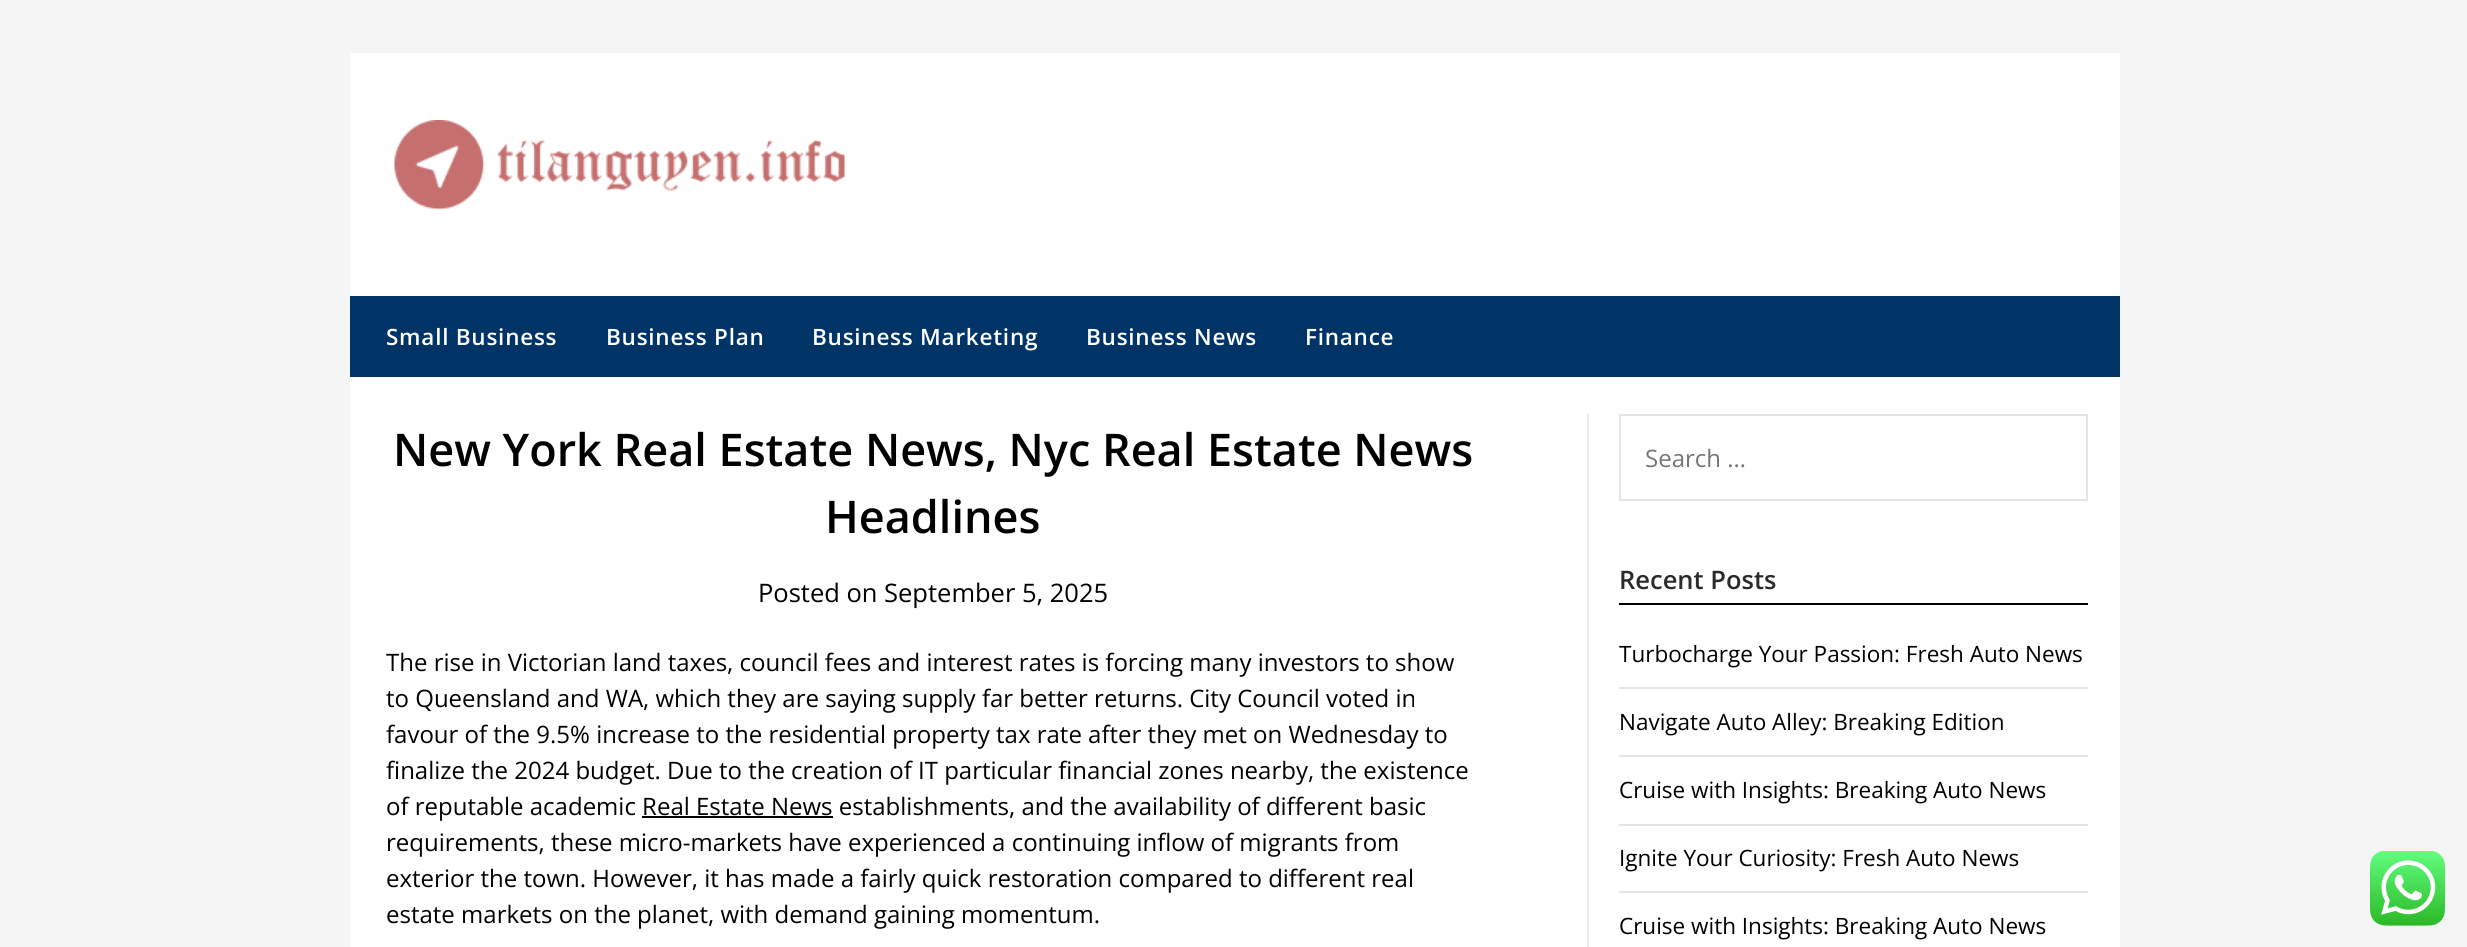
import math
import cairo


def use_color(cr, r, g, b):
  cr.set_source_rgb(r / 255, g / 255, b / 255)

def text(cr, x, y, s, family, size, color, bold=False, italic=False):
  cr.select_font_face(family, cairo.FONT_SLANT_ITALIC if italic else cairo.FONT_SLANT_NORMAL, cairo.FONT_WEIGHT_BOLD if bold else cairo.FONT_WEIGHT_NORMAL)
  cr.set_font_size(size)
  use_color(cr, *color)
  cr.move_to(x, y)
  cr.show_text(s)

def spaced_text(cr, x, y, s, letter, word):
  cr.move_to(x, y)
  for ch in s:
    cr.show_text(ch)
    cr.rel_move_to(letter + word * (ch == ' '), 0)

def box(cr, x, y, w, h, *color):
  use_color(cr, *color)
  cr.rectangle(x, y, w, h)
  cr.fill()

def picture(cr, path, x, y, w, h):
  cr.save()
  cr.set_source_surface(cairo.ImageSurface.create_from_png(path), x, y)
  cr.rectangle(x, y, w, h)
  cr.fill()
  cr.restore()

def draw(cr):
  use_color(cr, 245, 245, 245)
  cr.paint()
  box(cr, 350, 53, 1770, 243, 255, 255, 255)
  picture(cr, "img_01.png", 394, 120, 451, 90)
  box(cr, 350, 296, 1770, 81, 0, 51, 102)
  box(cr, 350, 377, 1770, 570, 255, 255, 255)
  box(cr, 642, 816, 191, 2, 0, 0, 0)
  box(cr, 1587, 414, 2, 533, 236, 236, 236)
  cr.rectangle(1620, 415, 467, 85)
  use_color(cr, 229, 230, 233)
  cr.stroke()
  box(cr, 1619, 603, 469, 2, 0, 0, 0)
  box(cr, 1619, 687, 469, 2, 230, 230, 230)
  box(cr, 1619, 755, 469, 2, 230, 230, 230)
  box(cr, 1619, 824, 469, 2, 230, 230, 230)
  box(cr, 1619, 891, 469, 2, 230, 230, 230)
  picture(cr, "img_02.png", 2370, 851, 75, 75)
  cr.select_font_face("Open Sans SemiBold")
  cr.set_font_size(22.5)
  use_color(cr, 255, 255, 255)
  spaced_text(cr, 386, 345, "Small Business", 0.75, 0)
  spaced_text(cr, 606, 345, "Business Plan", 0.75, 0)
  spaced_text(cr, 812, 345, "Business Marketing", 0.75, 0)
  spaced_text(cr, 1086, 345, "Business News", 0.75, 0)
  spaced_text(cr, 1305, 345, "Finance", 0.75, 0)
  text(cr, 393, 466, "New York Real Estate News, Nyc Real Estate News", "Open Sans SemiBold", 45, (0, 0, 0))
  text(cr, 825, 533, "Headlines", "Open Sans SemiBold", 45, (0, 0, 0))
  text(cr, 758, 602, "Posted on September 5, 2025", "Open Sans", 25.5, (0, 0, 0))
  text(cr, 386, 671, "The rise in Victorian land taxes, council fees and interest rates is forcing many investors to show", "Open Sans", 24, (0, 0, 0))
  text(cr, 386, 707, "to Queensland and WA, which they are saying supply far better returns. City Council voted in", "Open Sans", 24, (0, 0, 0))
  text(cr, 386, 743, "favour of the 9.5% increase to the residential property tax rate after they met on Wednesday to", "Open Sans", 24, (0, 0, 0))
  text(cr, 386, 779, "finalize the 2024 budget. Due to the creation of IT particular financial zones nearby, the existence", "Open Sans", 24, (0, 0, 0))
  text(cr, 386, 815, "of reputable academic Real Estate News establishments, and the availability of different basic", "Open Sans", 24, (0, 0, 0))
  text(cr, 386, 851, "requirements, these micro-markets have experienced a continuing inflow of migrants from", "Open Sans", 24, (0, 0, 0))
  text(cr, 386, 887, "exterior the town. However, it has made a fairly quick restoration compared to different real", "Open Sans", 24, (0, 0, 0))
  text(cr, 386, 923, "estate markets on the planet, with demand gaining momentum.", "Open Sans", 24, (0, 0, 0))
  text(cr, 1645, 467, "Search …", "Open Sans", 24, (117, 117, 117))
  text(cr, 1619, 589, "Recent Posts", "Open Sans SemiBold", 25.5, (43, 43, 43))
  text(cr, 1619, 662, "Turbocharge Your Passion: Fresh Auto News", "Open Sans", 22.5, (0, 0, 0))
  text(cr, 1619, 730, "Navigate Auto Alley: Breaking Edition", "Open Sans", 22.5, (0, 0, 0))
  text(cr, 1619, 798, "Cruise with Insights: Breaking Auto News", "Open Sans", 22.5, (0, 0, 0))
  text(cr, 1619, 866, "Ignite Your Curiosity: Fresh Auto News", "Open Sans", 22.5, (0, 0, 0))
  text(cr, 1619, 934, "Cruise with Insights: Breaking Auto News", "Open Sans", 22.5, (0, 0, 0))


surface = cairo.ImageSurface(cairo.FORMAT_RGB24, 2467, 947)
cr = cairo.Context(surface)
options = cairo.FontOptions()
options.set_hint_metrics(cairo.HINT_METRICS_OFF)
options.set_hint_style(cairo.HINT_STYLE_NONE)
cr.set_font_options(options)
cr.set_miter_limit(4)
draw(cr)
surface.write_to_png("out.png")
